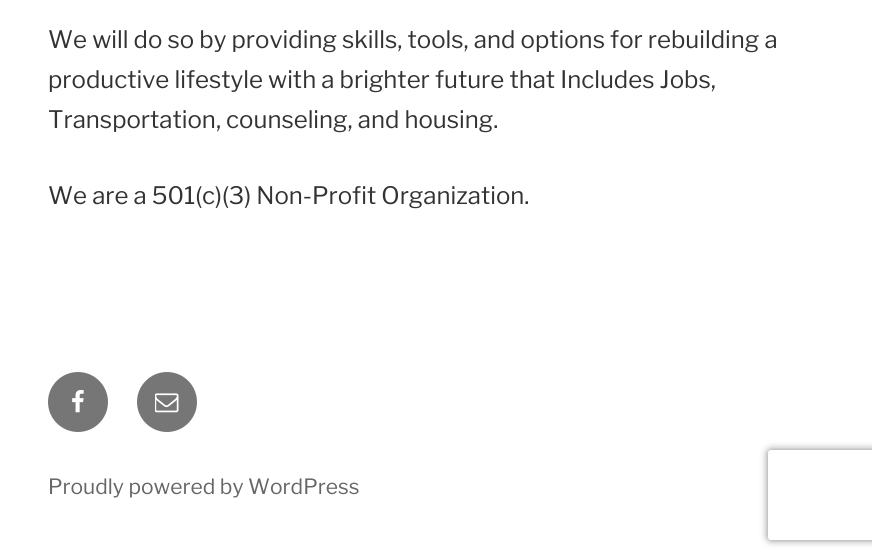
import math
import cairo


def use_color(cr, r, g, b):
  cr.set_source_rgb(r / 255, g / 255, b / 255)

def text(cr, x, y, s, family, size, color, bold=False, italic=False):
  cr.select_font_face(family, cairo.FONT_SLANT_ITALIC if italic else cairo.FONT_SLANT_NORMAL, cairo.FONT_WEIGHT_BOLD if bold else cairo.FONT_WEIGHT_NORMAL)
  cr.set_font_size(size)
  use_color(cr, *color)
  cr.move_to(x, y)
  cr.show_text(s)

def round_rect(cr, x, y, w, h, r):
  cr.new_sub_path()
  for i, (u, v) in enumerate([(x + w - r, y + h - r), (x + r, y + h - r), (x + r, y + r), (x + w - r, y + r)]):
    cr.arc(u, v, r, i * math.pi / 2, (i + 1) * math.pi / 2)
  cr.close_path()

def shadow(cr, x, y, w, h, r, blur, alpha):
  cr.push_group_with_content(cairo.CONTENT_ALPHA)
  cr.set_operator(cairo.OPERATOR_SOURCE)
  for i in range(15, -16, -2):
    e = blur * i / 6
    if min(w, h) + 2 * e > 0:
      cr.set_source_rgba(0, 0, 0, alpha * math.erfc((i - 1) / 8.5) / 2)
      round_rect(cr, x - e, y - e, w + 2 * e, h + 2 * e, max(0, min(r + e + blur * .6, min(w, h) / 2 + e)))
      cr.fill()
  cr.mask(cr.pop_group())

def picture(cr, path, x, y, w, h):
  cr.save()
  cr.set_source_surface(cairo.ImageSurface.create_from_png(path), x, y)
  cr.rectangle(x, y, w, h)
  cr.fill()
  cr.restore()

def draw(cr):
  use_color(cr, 255, 255, 255)
  cr.paint()
  use_color(cr, 118, 118, 118)
  cr.arc(78, 402, 30, 0, 2 * math.pi)
  cr.fill()
  picture(cr, "img_01.png", 72, 390, 12, 23)
  cr.arc(167, 402, 30, 0, 2 * math.pi)
  cr.fill()
  picture(cr, "img_02.png", 155, 393, 24, 20)
  cr.save()
  cr.set_fill_rule(cairo.FILL_RULE_EVEN_ODD)
  cr.new_path()
  cr.move_to(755, 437)
  cr.line_to(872, 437)
  cr.line_to(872, 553)
  cr.line_to(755, 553)
  cr.close_path()
  cr.move_to(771, 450)
  cr.line_to(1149, 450)
  cr.curve_to(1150.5, 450, 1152, 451.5, 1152, 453)
  cr.line_to(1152, 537)
  cr.curve_to(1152, 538.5, 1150.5, 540, 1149, 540)
  cr.line_to(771, 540)
  cr.curve_to(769.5, 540, 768, 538.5, 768, 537)
  cr.line_to(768, 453)
  cr.curve_to(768, 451.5, 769.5, 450, 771, 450)
  cr.close_path()
  cr.clip()
  use_color(cr, 128, 128, 128)
  shadow(cr, 768, 450, 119, 90, 3, 4, 1)
  cr.restore()
  text(cr, 48, 48, "We will do so by providing skills, tools, and options for rebuilding a", "Libre Franklin", 24, (51, 51, 51))
  text(cr, 48, 88, "productive lifestyle with a brighter future that Includes Jobs,", "Libre Franklin", 24, (51, 51, 51))
  text(cr, 48, 128, "Transportation, counseling, and housing.", "Libre Franklin", 24, (51, 51, 51))
  text(cr, 48, 204, "We are a 501(c)(3) Non-Profit Organization.", "Libre Franklin", 24, (51, 51, 51))
  text(cr, 48, 494, "Proudly powered by WordPress", "Libre Franklin", 21, (102, 102, 102))


surface = cairo.ImageSurface(cairo.FORMAT_RGB24, 872, 560)
cr = cairo.Context(surface)
options = cairo.FontOptions()
options.set_hint_metrics(cairo.HINT_METRICS_OFF)
options.set_hint_style(cairo.HINT_STYLE_NONE)
cr.set_font_options(options)
cr.set_miter_limit(4)
draw(cr)
surface.write_to_png("out.png")
